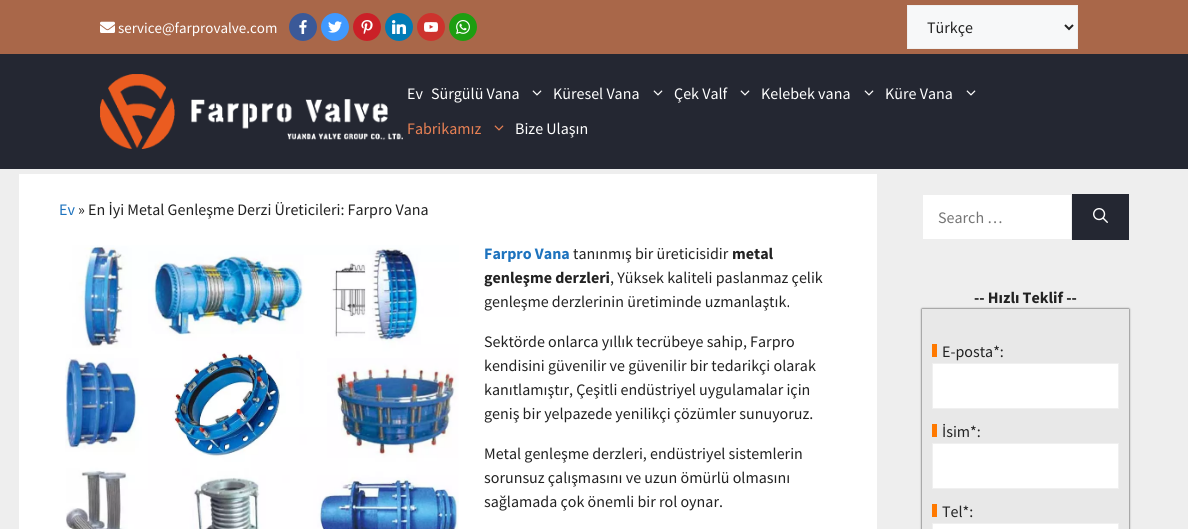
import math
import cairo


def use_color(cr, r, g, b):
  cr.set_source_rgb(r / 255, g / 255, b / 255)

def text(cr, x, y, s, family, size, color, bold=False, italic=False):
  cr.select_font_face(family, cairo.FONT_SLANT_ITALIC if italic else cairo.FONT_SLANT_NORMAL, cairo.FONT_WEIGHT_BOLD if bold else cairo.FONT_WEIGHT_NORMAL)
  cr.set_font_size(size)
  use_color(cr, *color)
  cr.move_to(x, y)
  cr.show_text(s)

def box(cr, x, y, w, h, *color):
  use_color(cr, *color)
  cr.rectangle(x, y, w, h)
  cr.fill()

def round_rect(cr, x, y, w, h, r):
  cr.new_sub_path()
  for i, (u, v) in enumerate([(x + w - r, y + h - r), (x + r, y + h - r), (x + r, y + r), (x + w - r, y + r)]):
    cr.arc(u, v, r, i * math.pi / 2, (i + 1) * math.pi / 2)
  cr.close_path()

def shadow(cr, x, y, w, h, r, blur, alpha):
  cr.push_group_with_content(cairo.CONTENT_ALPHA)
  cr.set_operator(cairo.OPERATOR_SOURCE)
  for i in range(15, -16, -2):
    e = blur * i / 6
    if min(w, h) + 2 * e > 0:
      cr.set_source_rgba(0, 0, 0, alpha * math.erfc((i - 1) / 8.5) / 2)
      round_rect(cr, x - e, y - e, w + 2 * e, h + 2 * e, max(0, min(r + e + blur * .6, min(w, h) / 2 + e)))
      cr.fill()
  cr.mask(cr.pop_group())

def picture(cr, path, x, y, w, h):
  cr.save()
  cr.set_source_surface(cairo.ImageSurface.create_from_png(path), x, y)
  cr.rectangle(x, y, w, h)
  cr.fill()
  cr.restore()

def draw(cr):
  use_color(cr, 238, 238, 238)
  cr.paint()
  box(cr, 0, 0, 1188, 54, 169, 103, 73)
  picture(cr, "img_01.png", 100, 21, 15, 12)
  use_color(cr, 59, 89, 152)
  cr.arc(303, 27, 14, 0, 2 * math.pi)
  cr.fill()
  picture(cr, "img_02.png", 299, 20, 8, 14)
  use_color(cr, 64, 153, 255)
  cr.arc(335, 27, 14, 0, 2 * math.pi)
  cr.fill()
  picture(cr, "img_03.png", 328, 21, 14, 12)
  use_color(cr, 203, 32, 39)
  cr.arc(367, 27, 14, 0, 2 * math.pi)
  cr.fill()
  picture(cr, "img_04.png", 361, 20, 12, 14)
  use_color(cr, 0, 123, 182)
  cr.arc(399, 27, 14, 0, 2 * math.pi)
  cr.fill()
  picture(cr, "img_05.png", 392, 20, 14, 14)
  use_color(cr, 205, 51, 45)
  cr.arc(431, 27, 14, 0, 2 * math.pi)
  cr.fill()
  picture(cr, "img_06.png", 424, 22, 14, 10)
  use_color(cr, 29, 158, 17)
  cr.arc(463, 27, 14, 0, 2 * math.pi)
  cr.fill()
  picture(cr, "img_07.png", 456, 20, 14, 14)
  use_color(cr, 247, 248, 249)
  cr.rectangle(907.5, 5.5, 170, 43)
  cr.fill_preserve()
  use_color(cr, 240, 240, 240)
  cr.set_line_width(1)
  cr.stroke()
  cr.new_path()
  cr.move_to(1065, 25)
  cr.line_to(1069, 29)
  cr.line_to(1073, 25)
  use_color(cr, 34, 34, 34)
  cr.set_line_width(2)
  cr.stroke()
  box(cr, 0, 54, 1188, 115, 36, 39, 50)
  picture(cr, "img_08.png", 100, 74, 303, 75)
  picture(cr, "img_09.png", 532, 90, 10, 6)
  picture(cr, "img_09.png", 653, 90, 10, 6)
  picture(cr, "img_09.png", 740, 90, 10, 6)
  picture(cr, "img_09.png", 864, 90, 10, 6)
  picture(cr, "img_09.png", 966, 90, 10, 6)
  picture(cr, "img_10.png", 494, 125, 10, 6)
  box(cr, 19, 174, 858, 355, 255, 255, 255)
  picture(cr, "img_11.png", 65, 245, 394, 284)
  box(cr, 923, 195, 148, 44, 255, 255, 255)
  box(cr, 1072, 194, 57, 46, 36, 39, 50)
  picture(cr, "img_12.png", 1093, 208, 15, 15)
  use_color(cr, 34, 34, 34)
  shadow(cr, 922, 309, 207, 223, 0, 1, 1)
  box(cr, 922, 309, 207, 220, 232, 232, 232)
  box(cr, 932, 344, 5, 13, 255, 121, 0)
  use_color(cr, 255, 255, 255)
  cr.rectangle(932.5, 363.5, 186, 45)
  cr.fill_preserve()
  use_color(cr, 240, 240, 240)
  cr.set_line_width(1)
  cr.stroke()
  box(cr, 932, 424, 5, 13, 255, 121, 0)
  use_color(cr, 255, 255, 255)
  cr.rectangle(932.5, 443.5, 186, 45)
  cr.fill_preserve()
  use_color(cr, 240, 240, 240)
  cr.stroke()
  box(cr, 932, 504, 5, 13, 255, 121, 0)
  use_color(cr, 255, 255, 255)
  cr.rectangle(932.5, 523.5, 186, 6)
  cr.fill_preserve()
  use_color(cr, 240, 240, 240)
  cr.stroke()
  text(cr, 118, 33, "service@farprovalve.com", "Source Sans Pro", 15, (255, 255, 255))
  text(cr, 927, 33, "Türkçe", "Source Sans Pro", 16, (34, 34, 34))
  text(cr, 407, 99, "Ev", "Source Sans Pro", 16, (255, 255, 255))
  text(cr, 431, 99, "Sürgülü Vana", "Source Sans Pro", 16, (255, 255, 255))
  text(cr, 553, 99, "Küresel Vana", "Source Sans Pro", 16, (255, 255, 255))
  text(cr, 674, 99, "Çek Valf", "Source Sans Pro", 16, (255, 255, 255))
  text(cr, 761, 99, "Kelebek vana", "Source Sans Pro", 16, (255, 255, 255))
  text(cr, 885, 99, "Küre Vana", "Source Sans Pro", 16, (255, 255, 255))
  text(cr, 407, 134, "Fabrikamız", "Source Sans Pro", 16, (233, 129, 84))
  text(cr, 515, 134, "Bize Ulaşın", "Source Sans Pro", 16, (255, 255, 255))
  text(cr, 59, 215, "Ev", "Source Sans Pro", 16, (30, 115, 190))
  text(cr, 78, 215, "» En İyi Metal Genleşme Derzi Üreticileri: Farpro Vana", "Source Sans Pro", 16, (34, 34, 34))
  text(cr, 484, 259, "Farpro Vana", "Source Sans Pro", 16, (30, 115, 190), bold=True)
  text(cr, 573, 259, "tanınmış bir üreticisidir", "Source Sans Pro", 16, (34, 34, 34))
  text(cr, 732, 259, "metal", "Source Sans Pro", 16, (34, 34, 34), bold=True)
  text(cr, 484, 283, "genleşme derzleri", "Source Sans Pro", 16, (34, 34, 34), bold=True)
  text(cr, 610, 283, ", Yüksek kaliteli paslanmaz çelik", "Source Sans Pro", 16, (34, 34, 34))
  text(cr, 484, 307, "genleşme derzlerinin üretiminde uzmanlaştık.", "Source Sans Pro", 16, (34, 34, 34))
  text(cr, 484, 347, "Sektörde onlarca yıllık tecrübeye sahip, Farpro", "Source Sans Pro", 16, (34, 34, 34))
  text(cr, 484, 371, "kendisini güvenilir ve güvenilir bir tedarikçi olarak", "Source Sans Pro", 16, (34, 34, 34))
  text(cr, 484, 395, "kanıtlamıştır, Çeşitli endüstriyel uygulamalar için", "Source Sans Pro", 16, (34, 34, 34))
  text(cr, 484, 419, "geniş bir yelpazede yenilikçi çözümler sunuyoruz.", "Source Sans Pro", 16, (34, 34, 34))
  text(cr, 484, 459, "Metal genleşme derzleri, endüstriyel sistemlerin", "Source Sans Pro", 16, (34, 34, 34))
  text(cr, 484, 483, "sorunsuz çalışmasını ve uzun ömürlü olmasını", "Source Sans Pro", 16, (34, 34, 34))
  text(cr, 484, 507, "sağlamada çok önemli bir rol oynar.", "Source Sans Pro", 16, (34, 34, 34))
  text(cr, 938, 223, "Search …", "Source Sans Pro", 16, (117, 117, 117))
  text(cr, 974, 303, "-- Hızlı Teklif --", "Source Sans Pro", 16, (34, 34, 34), bold=True)
  text(cr, 942, 357, "E-posta*:", "Source Sans Pro", 16, (34, 34, 34))
  text(cr, 942, 437, "İsim*:", "Source Sans Pro", 16, (34, 34, 34))
  text(cr, 942, 517, "Tel*:", "Source Sans Pro", 16, (34, 34, 34))


surface = cairo.ImageSurface(cairo.FORMAT_RGB24, 1188, 529)
cr = cairo.Context(surface)
options = cairo.FontOptions()
options.set_hint_metrics(cairo.HINT_METRICS_OFF)
options.set_hint_style(cairo.HINT_STYLE_NONE)
cr.set_font_options(options)
cr.set_miter_limit(4)
draw(cr)
surface.write_to_png("out.png")
